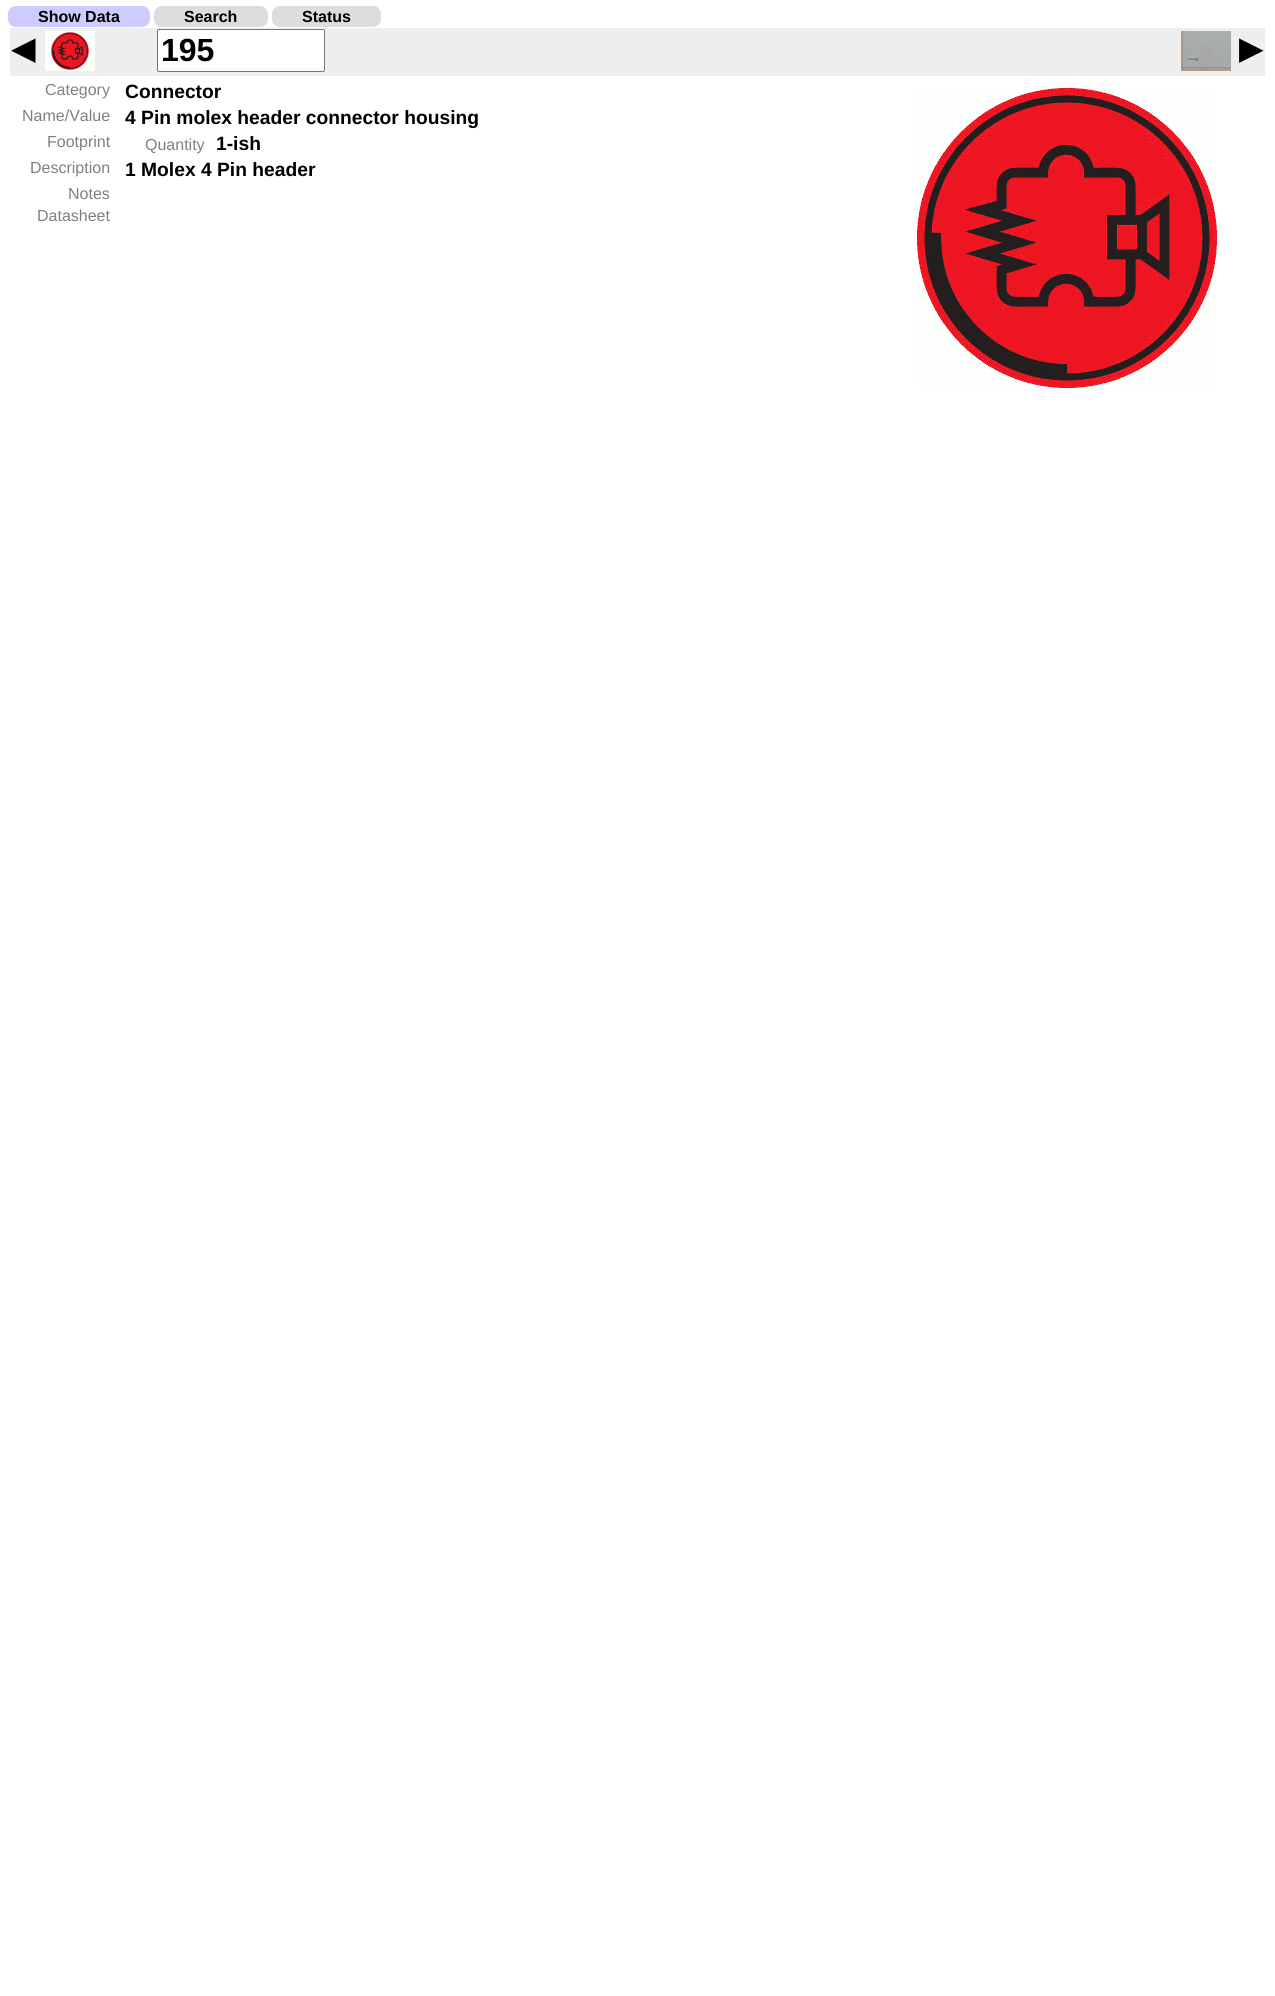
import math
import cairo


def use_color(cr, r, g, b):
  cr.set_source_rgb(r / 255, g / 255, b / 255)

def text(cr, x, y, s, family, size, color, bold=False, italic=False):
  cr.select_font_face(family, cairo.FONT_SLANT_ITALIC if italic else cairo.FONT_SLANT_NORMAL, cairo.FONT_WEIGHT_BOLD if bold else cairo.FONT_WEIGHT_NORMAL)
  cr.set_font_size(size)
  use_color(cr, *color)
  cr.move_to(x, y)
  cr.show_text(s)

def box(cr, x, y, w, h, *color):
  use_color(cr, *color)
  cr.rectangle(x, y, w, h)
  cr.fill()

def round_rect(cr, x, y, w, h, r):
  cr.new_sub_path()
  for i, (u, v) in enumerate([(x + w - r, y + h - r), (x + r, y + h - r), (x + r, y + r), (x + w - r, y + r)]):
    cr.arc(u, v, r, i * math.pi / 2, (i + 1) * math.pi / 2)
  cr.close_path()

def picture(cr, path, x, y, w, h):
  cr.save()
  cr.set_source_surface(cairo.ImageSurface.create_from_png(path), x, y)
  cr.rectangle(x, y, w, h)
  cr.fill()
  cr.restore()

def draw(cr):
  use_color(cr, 255, 255, 255)
  cr.paint()
  use_color(cr, 204, 204, 255)
  round_rect(cr, 8, 6, 142, 21, 8)
  cr.fill()
  use_color(cr, 221, 221, 221)
  round_rect(cr, 154, 6, 114, 21, 8)
  cr.fill()
  round_rect(cr, 272, 6, 109, 21, 8)
  cr.fill()
  box(cr, 10, 28, 1255, 48, 238, 238, 238)
  picture(cr, "img_01.png", 45, 31, 50, 40)
  use_color(cr, 255, 255, 255)
  round_rect(cr, 157.5, 29.5, 167, 42, 1.5)
  cr.fill_preserve()
  use_color(cr, 118, 118, 118)
  cr.set_line_width(1)
  cr.stroke()
  picture(cr, "img_02.png", 1181, 31, 50, 40)
  picture(cr, "img_03.png", 917, 88, 300, 300)
  text(cr, 38, 22, "Show Data", "Liberation Sans", 16, (0, 0, 0), bold=True)
  text(cr, 184, 22, "Search", "Liberation Sans", 16, (0, 0, 0), bold=True)
  text(cr, 302, 22, "Status", "Liberation Sans", 16, (0, 0, 0), bold=True)
  text(cr, 11, 59, "◀", "DejaVu Sans", 32, (0, 0, 0))
  text(cr, 161, 61, "195", "Liberation Sans", 32, (0, 0, 0), bold=True)
  text(cr, 1239, 59, "▶", "DejaVu Sans", 32, (0, 0, 0))
  text(cr, 45, 95, "Category", "Liberation Sans", 16, (128, 128, 128))
  text(cr, 125, 98, "Connector", "Liberation Sans", 19.25, (0, 0, 0), bold=True)
  text(cr, 22, 121, "Name/Value", "Liberation Sans", 16, (128, 128, 128))
  text(cr, 125, 124, "4 Pin molex header connector housing", "Liberation Sans", 19.25, (0, 0, 0), bold=True)
  text(cr, 47, 147, "Footprint", "Liberation Sans", 16, (128, 128, 128))
  text(cr, 145, 150, "Quantity", "Liberation Sans", 16, (128, 128, 128))
  text(cr, 216, 150, "1-ish", "Liberation Sans", 19.25, (0, 0, 0), bold=True)
  text(cr, 30, 173, "Description", "Liberation Sans", 16, (128, 128, 128))
  text(cr, 125, 176, "1 Molex 4 Pin header", "Liberation Sans", 19.25, (0, 0, 0), bold=True)
  text(cr, 68, 199, "Notes", "Liberation Sans", 16, (128, 128, 128))
  text(cr, 37, 221, "Datasheet", "Liberation Sans", 16, (128, 128, 128))


surface = cairo.ImageSurface(cairo.FORMAT_RGB24, 1275, 1996)
cr = cairo.Context(surface)
options = cairo.FontOptions()
options.set_hint_metrics(cairo.HINT_METRICS_OFF)
options.set_hint_style(cairo.HINT_STYLE_NONE)
cr.set_font_options(options)
cr.set_miter_limit(4)
draw(cr)
surface.write_to_png("out.png")
